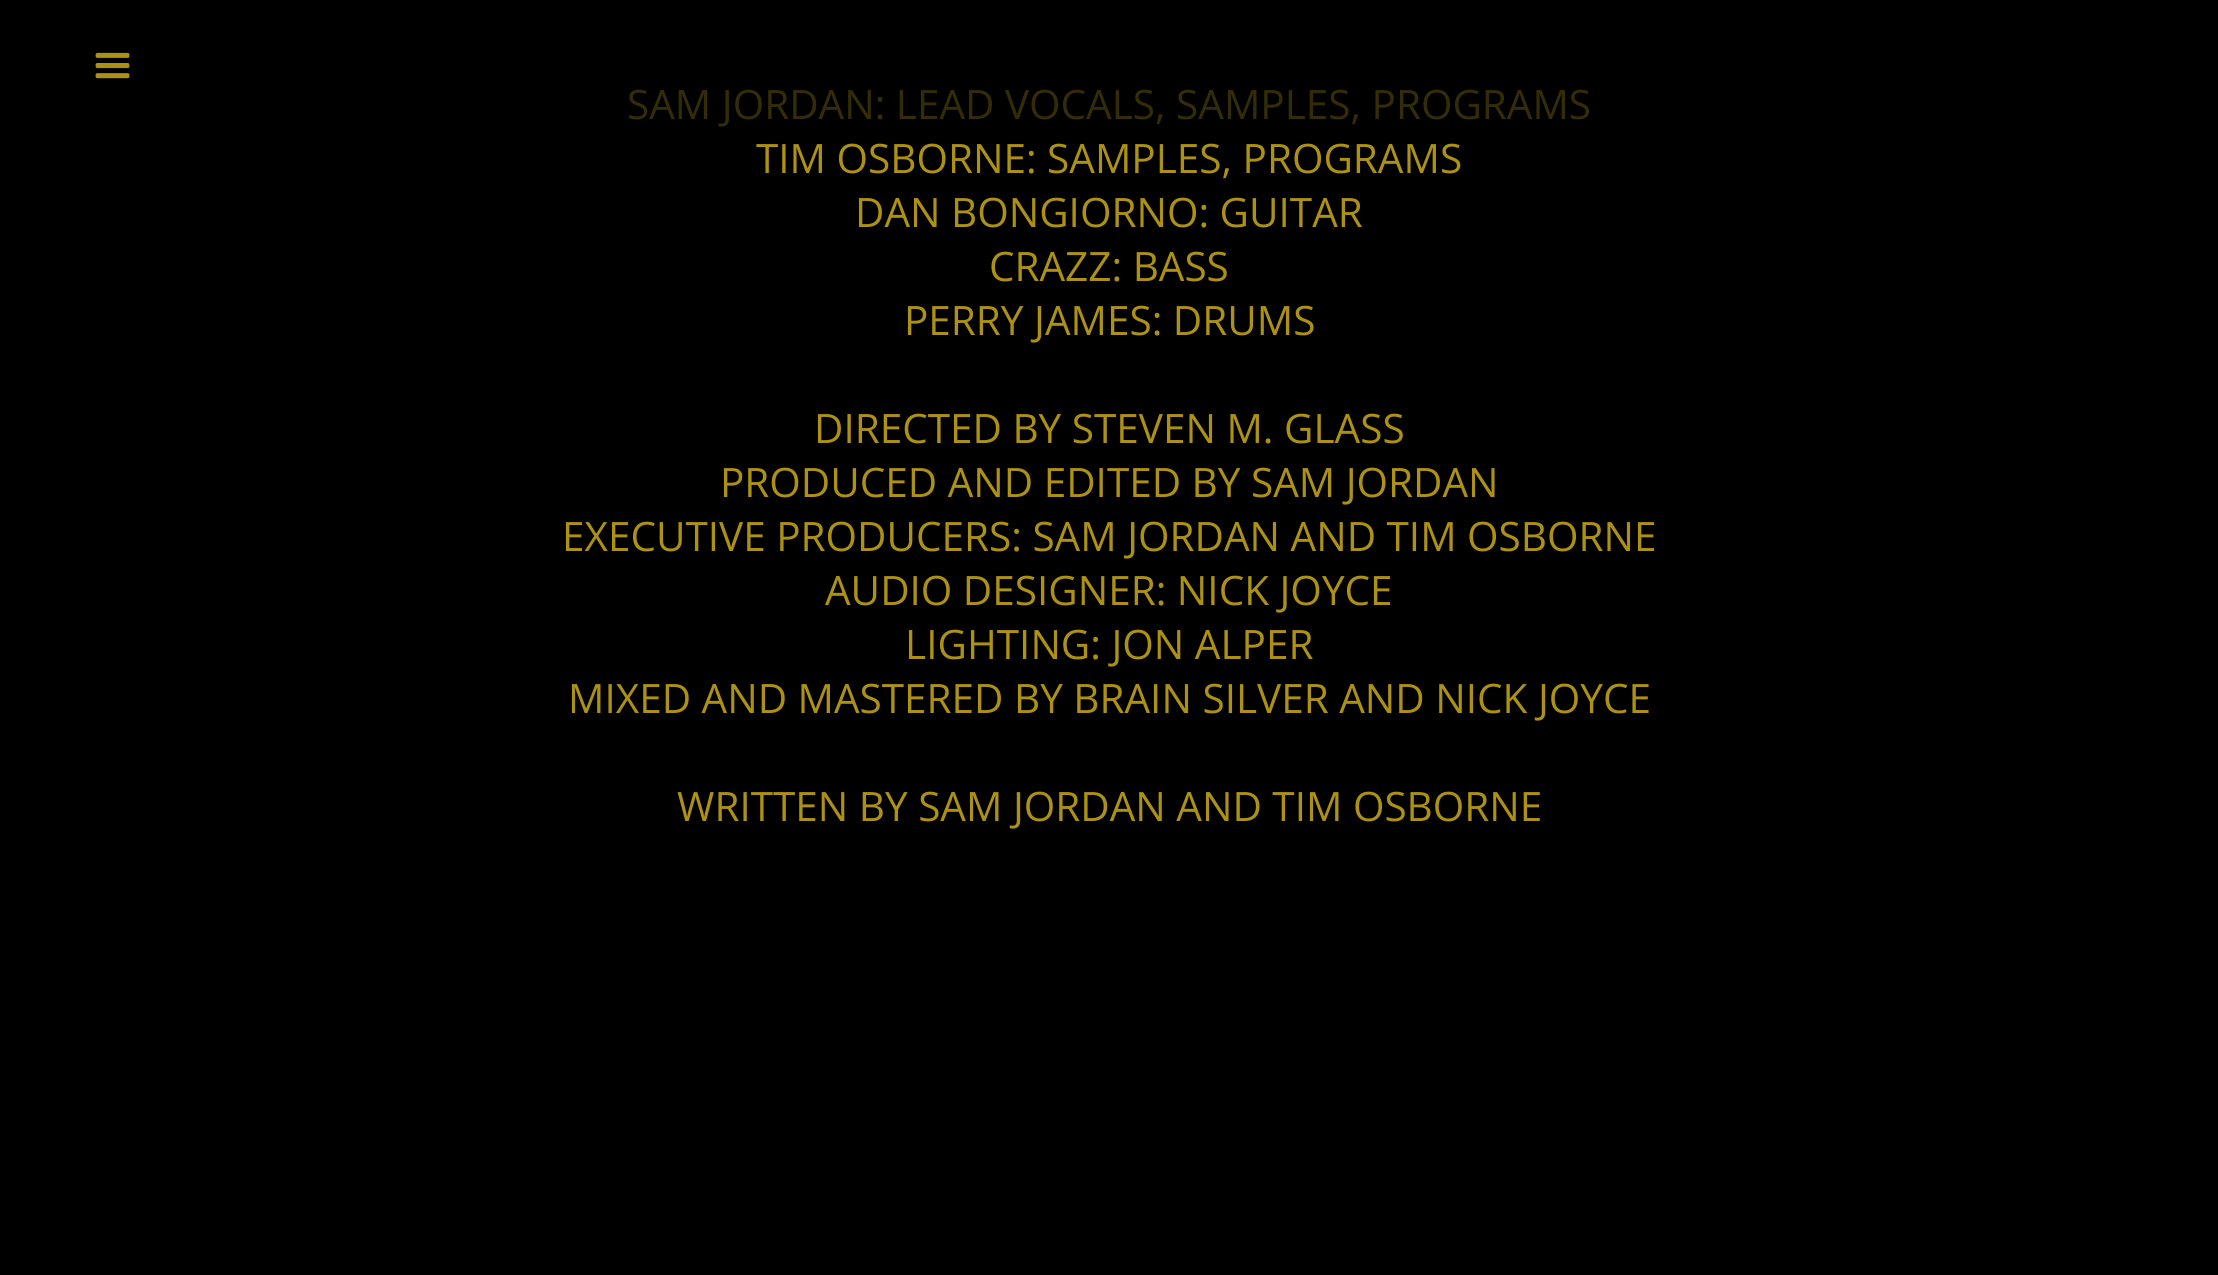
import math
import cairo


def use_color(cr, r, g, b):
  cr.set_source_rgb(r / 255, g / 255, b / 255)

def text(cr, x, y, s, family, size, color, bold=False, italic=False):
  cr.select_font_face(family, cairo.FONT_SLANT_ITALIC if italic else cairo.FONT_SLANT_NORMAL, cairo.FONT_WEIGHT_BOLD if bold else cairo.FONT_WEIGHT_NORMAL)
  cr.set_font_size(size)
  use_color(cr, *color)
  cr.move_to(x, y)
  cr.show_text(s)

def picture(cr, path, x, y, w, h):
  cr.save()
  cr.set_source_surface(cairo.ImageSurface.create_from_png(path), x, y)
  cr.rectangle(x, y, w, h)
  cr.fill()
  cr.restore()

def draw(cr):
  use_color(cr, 0, 0, 0)
  cr.paint()
  picture(cr, "img_01.png", 95, 52, 35, 27)
  text(cr, 627, 119, "SAM JORDAN: LEAD VOCALS, SAMPLES, PROGRAMS", "Open Sans", 40.5, (52, 44, 6))
  text(cr, 756, 173, "TIM OSBORNE: SAMPLES, PROGRAMS", "Open Sans", 40.5, (173, 145, 19))
  text(cr, 855, 227, "DAN BONGIORNO: GUITAR", "Open Sans", 40.5, (173, 145, 19))
  text(cr, 989, 281, "CRAZZ: BASS", "Open Sans", 40.5, (173, 145, 19))
  text(cr, 904, 335, "PERRY JAMES: DRUMS", "Open Sans", 40.5, (173, 145, 19))
  text(cr, 814, 443, "DIRECTED BY STEVEN M. GLASS", "Open Sans", 40.5, (173, 145, 19))
  text(cr, 720, 497, "PRODUCED AND EDITED BY SAM JORDAN", "Open Sans", 40.5, (173, 145, 19))
  text(cr, 562, 551, "EXECUTIVE PRODUCERS: SAM JORDAN AND TIM OSBORNE", "Open Sans", 40.5, (173, 145, 19))
  text(cr, 825, 605, "AUDIO DESIGNER: NICK JOYCE", "Open Sans", 40.5, (173, 145, 19))
  text(cr, 905, 659, "LIGHTING: JON ALPER", "Open Sans", 40.5, (173, 145, 19))
  text(cr, 568, 713, "MIXED AND MASTERED BY BRAIN SILVER AND NICK JOYCE", "Open Sans", 40.5, (173, 145, 19))
  text(cr, 677, 821, "WRITTEN BY SAM JORDAN AND TIM OSBORNE", "Open Sans", 40.5, (173, 145, 19))


surface = cairo.ImageSurface(cairo.FORMAT_RGB24, 2218, 1275)
cr = cairo.Context(surface)
options = cairo.FontOptions()
options.set_hint_metrics(cairo.HINT_METRICS_OFF)
options.set_hint_style(cairo.HINT_STYLE_NONE)
cr.set_font_options(options)
cr.set_miter_limit(4)
draw(cr)
surface.write_to_png("out.png")
